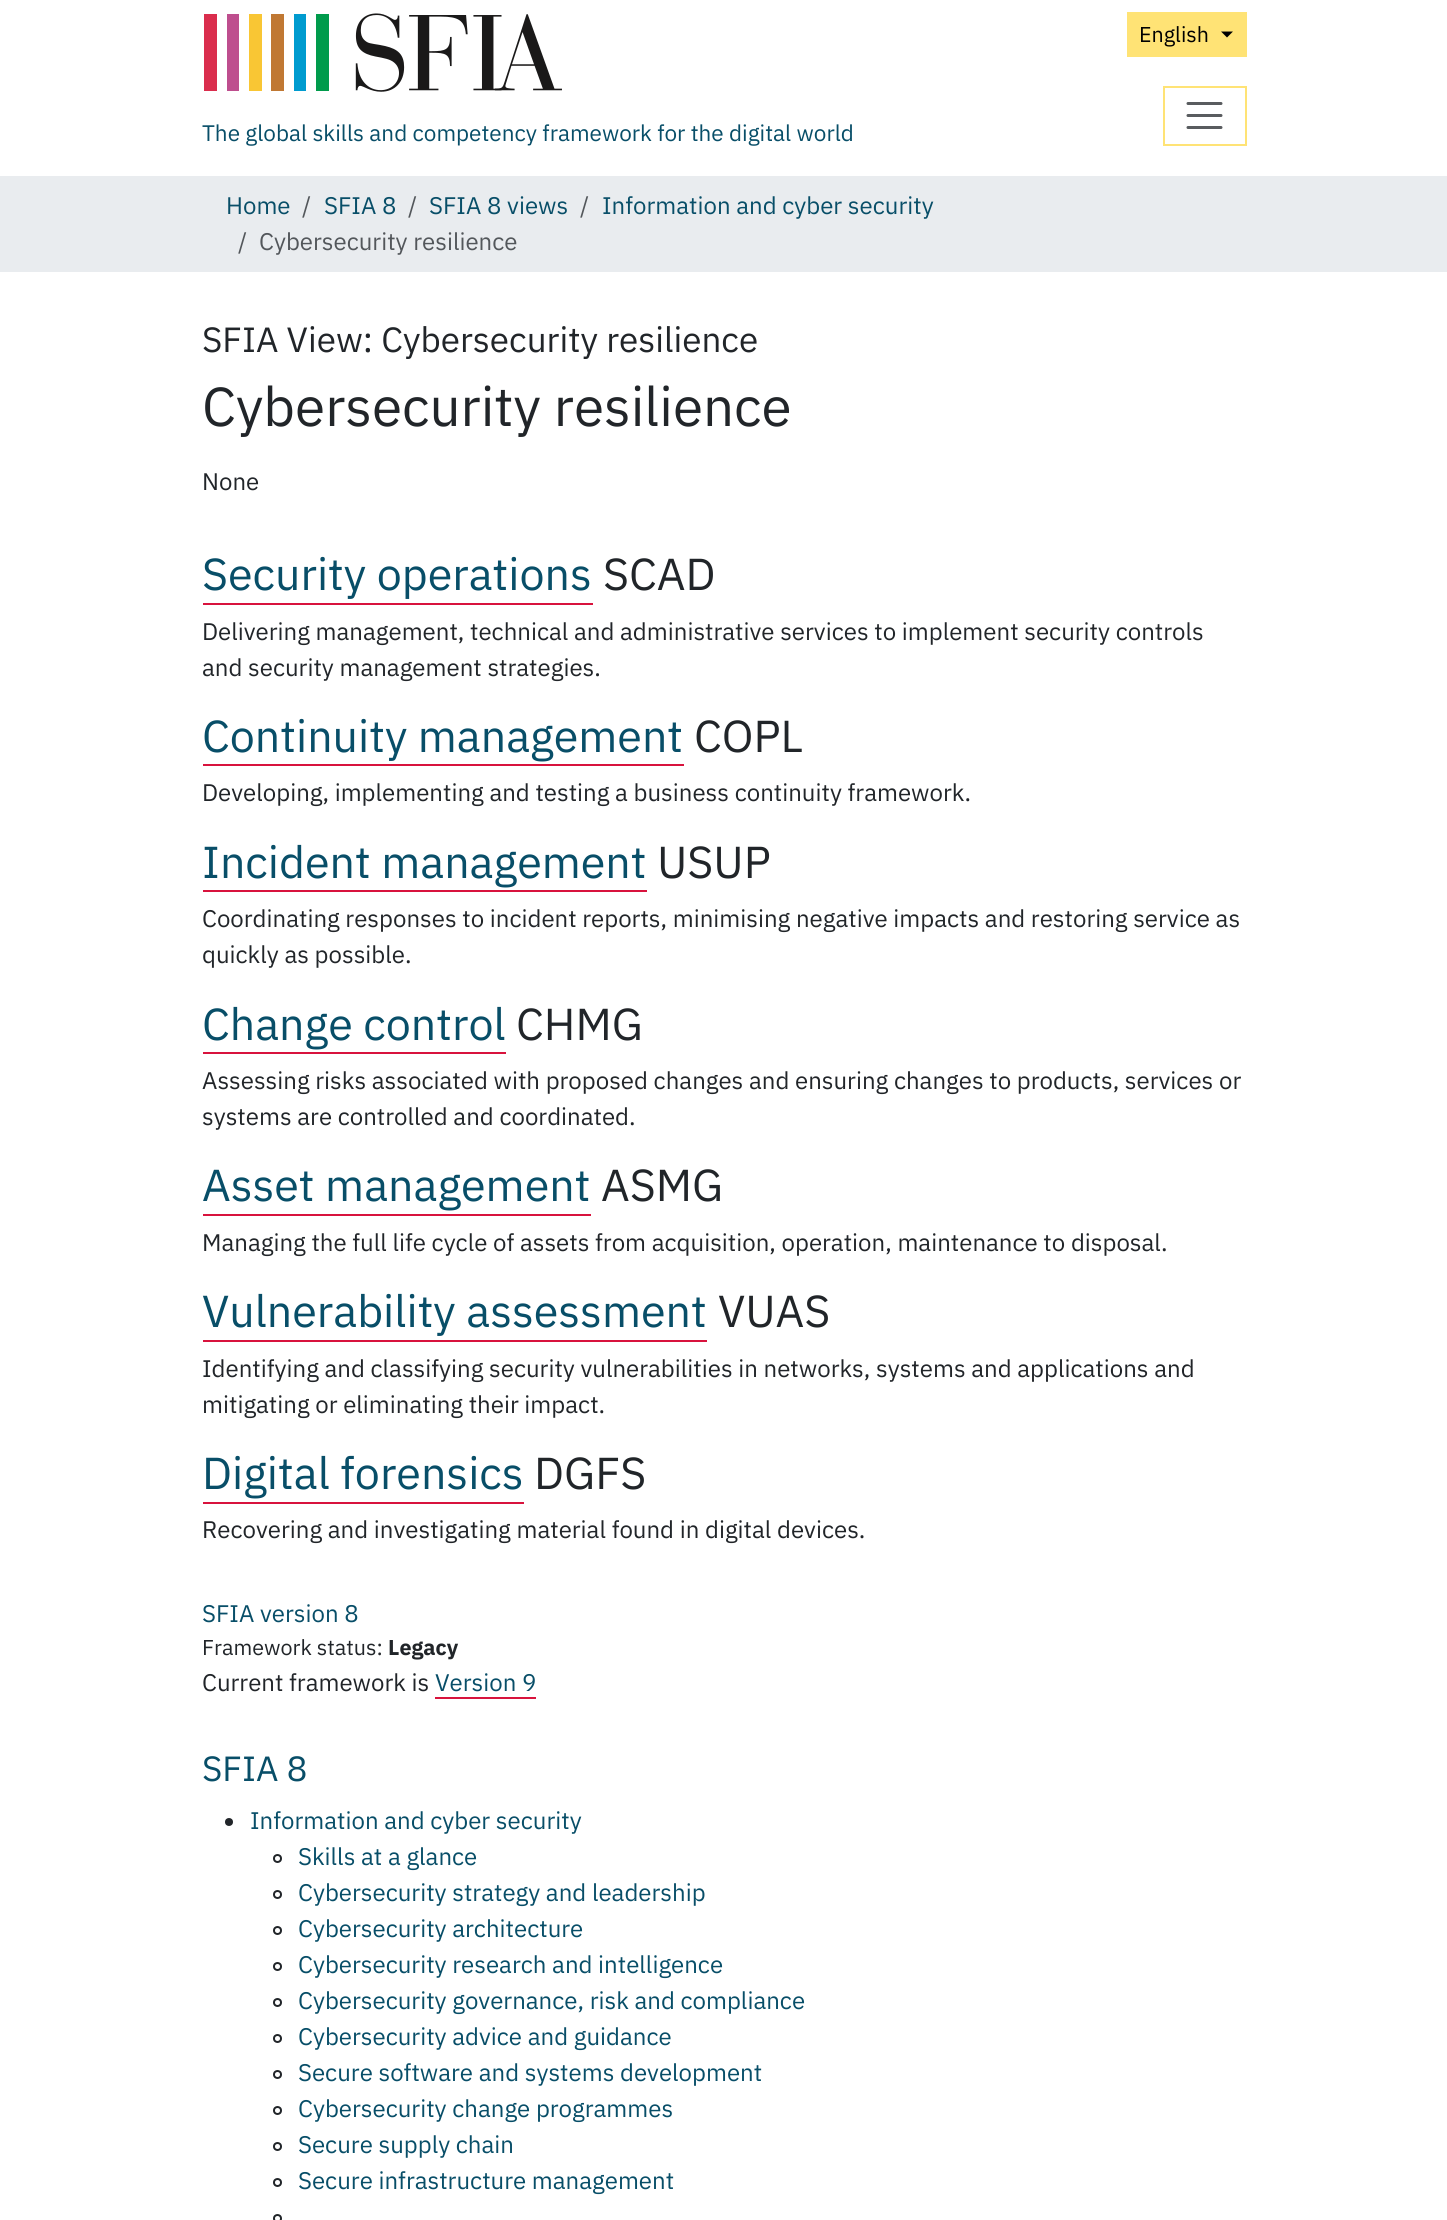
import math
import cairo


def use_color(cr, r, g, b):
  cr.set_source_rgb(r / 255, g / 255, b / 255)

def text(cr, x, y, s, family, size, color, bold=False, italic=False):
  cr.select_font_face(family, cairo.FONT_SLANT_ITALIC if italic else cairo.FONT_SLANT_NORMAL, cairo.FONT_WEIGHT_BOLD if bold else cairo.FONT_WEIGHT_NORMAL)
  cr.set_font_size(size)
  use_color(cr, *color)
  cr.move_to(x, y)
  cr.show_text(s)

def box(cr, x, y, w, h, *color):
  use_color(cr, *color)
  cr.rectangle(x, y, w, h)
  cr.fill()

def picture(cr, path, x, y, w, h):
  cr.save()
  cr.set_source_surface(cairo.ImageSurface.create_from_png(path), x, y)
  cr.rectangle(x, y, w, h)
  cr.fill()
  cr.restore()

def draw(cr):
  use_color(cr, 255, 255, 255)
  cr.paint()
  box(cr, 1127, 12, 120, 45, 255, 227, 117)
  use_color(cr, 0, 0, 0)
  cr.new_path()
  cr.move_to(1221, 31.5)
  cr.line_to(1233, 31.5)
  cr.line_to(1227, 37.5)
  cr.close_path()
  cr.fill()
  picture(cr, "img_01.png", 204, 13, 358, 79)
  cr.rectangle(1164, 87, 82, 58)
  use_color(cr, 255, 227, 117)
  cr.stroke()
  cr.new_path()
  cr.move_to(1188, 103.5)
  cr.line_to(1221, 103.5)
  cr.move_to(1188, 115.5)
  cr.line_to(1221, 115.5)
  cr.move_to(1188, 127.5)
  cr.line_to(1221, 127.5)
  use_color(cr, 89, 92, 95)
  cr.set_line_width(3)
  cr.set_line_cap(cairo.LINE_CAP_ROUND)
  cr.stroke()
  box(cr, 0, 176, 1447, 96, 233, 236, 239)
  box(cr, 203, 603, 390, 2, 216, 19, 61)
  box(cr, 203, 764, 481, 2, 216, 19, 61)
  box(cr, 203, 890, 444, 2, 216, 19, 61)
  box(cr, 203, 1052, 303, 2, 216, 19, 61)
  box(cr, 203, 1214, 388, 2, 216, 19, 61)
  box(cr, 203, 1340, 504, 2, 216, 19, 61)
  box(cr, 203, 1502, 321, 2, 216, 19, 61)
  box(cr, 435, 1697, 101, 2, 216, 19, 61)
  use_color(cr, 33, 37, 41)
  cr.arc(229, 1822, 4, 0, 2 * math.pi)
  cr.fill()
  cr.arc(277.5, 1858.5, 3.5, 0, 2 * math.pi)
  cr.set_line_width(2)
  cr.set_line_cap(cairo.LINE_CAP_BUTT)
  cr.stroke()
  cr.arc(277.5, 1894.5, 3.5, 0, 2 * math.pi)
  cr.stroke()
  cr.arc(277.5, 1930.5, 3.5, 0, 2 * math.pi)
  cr.stroke()
  cr.arc(277.5, 1966.5, 3.5, 0, 2 * math.pi)
  cr.stroke()
  cr.arc(277.5, 2002.5, 3.5, 0, 2 * math.pi)
  cr.stroke()
  cr.arc(277.5, 2038.5, 3.5, 0, 2 * math.pi)
  cr.stroke()
  cr.arc(277.5, 2074.5, 3.5, 0, 2 * math.pi)
  cr.stroke()
  cr.arc(277.5, 2110.5, 3.5, 0, 2 * math.pi)
  cr.stroke()
  cr.arc(277.5, 2146.5, 3.5, 0, 2 * math.pi)
  cr.stroke()
  cr.arc(277.5, 2182.5, 3.5, 0, 2 * math.pi)
  cr.stroke()
  cr.arc(277.5, 2218.5, 3.5, 0, 2 * math.pi)
  cr.stroke()
  text(cr, 1139, 42, "English", "IBM Plex Sans", 21.5, (0, 0, 0))
  text(cr, 202, 141, "The global skills and competency framework for the digital world", "IBM Plex Sans", 22.5, (8, 78, 104))
  text(cr, 226, 214, "Home", "IBM Plex Sans", 24, (8, 78, 104))
  text(cr, 302, 214, "/", "IBM Plex Sans", 24, (83, 87, 91))
  text(cr, 324, 214, "SFIA 8", "IBM Plex Sans", 24, (8, 78, 104))
  text(cr, 408, 214, "/", "IBM Plex Sans", 24, (83, 87, 91))
  text(cr, 429, 214, "SFIA 8 views", "IBM Plex Sans", 24, (8, 78, 104))
  text(cr, 580, 214, "/", "IBM Plex Sans", 24, (83, 87, 91))
  text(cr, 602, 214, "Information and cyber security", "IBM Plex Sans", 24, (8, 78, 104))
  text(cr, 238, 250, "/", "IBM Plex Sans", 24, (83, 87, 91))
  text(cr, 259, 250, "Cybersecurity resilience", "IBM Plex Sans", 24, (83, 87, 91))
  text(cr, 202, 352, "SFIA View: Cybersecurity resilience", "IBM Plex Sans", 35, (33, 37, 41))
  text(cr, 202, 426, "Cybersecurity resilience", "IBM Plex Sans", 54.75, (33, 37, 41))
  text(cr, 202, 490, "None", "IBM Plex Sans", 24, (33, 37, 41))
  text(cr, 202, 590, "Security operations", "IBM Plex Sans", 44.75, (8, 78, 104))
  text(cr, 603, 590, "SCAD", "IBM Plex Sans", 44.75, (33, 37, 41))
  text(cr, 202, 640, "Delivering management, technical and administrative services to implement security controls", "IBM Plex Sans", 24, (33, 37, 41))
  text(cr, 202, 676, "and security management strategies.", "IBM Plex Sans", 24, (33, 37, 41))
  text(cr, 202, 752, "Continuity management", "IBM Plex Sans", 44.75, (8, 78, 104))
  text(cr, 694, 752, "COPL", "IBM Plex Sans", 44.75, (33, 37, 41))
  text(cr, 202, 801, "Developing, implementing and testing a business continuity framework.", "IBM Plex Sans", 24, (33, 37, 41))
  text(cr, 202, 878, "Incident management", "IBM Plex Sans", 44.75, (8, 78, 104))
  text(cr, 657, 878, "USUP", "IBM Plex Sans", 44.75, (33, 37, 41))
  text(cr, 202, 927, "Coordinating responses to incident reports, minimising negative impacts and restoring service as", "IBM Plex Sans", 24, (33, 37, 41))
  text(cr, 202, 963, "quickly as possible.", "IBM Plex Sans", 24, (33, 37, 41))
  text(cr, 202, 1040, "Change control", "IBM Plex Sans", 44.75, (8, 78, 104))
  text(cr, 516, 1040, "CHMG", "IBM Plex Sans", 44.75, (33, 37, 41))
  text(cr, 202, 1089, "Assessing risks associated with proposed changes and ensuring changes to products, services or", "IBM Plex Sans", 24, (33, 37, 41))
  text(cr, 202, 1125, "systems are controlled and coordinated.", "IBM Plex Sans", 24, (33, 37, 41))
  text(cr, 202, 1201, "Asset management", "IBM Plex Sans", 44.75, (8, 78, 104))
  text(cr, 601, 1201, "ASMG", "IBM Plex Sans", 44.75, (33, 37, 41))
  text(cr, 202, 1251, "Managing the full life cycle of assets from acquisition, operation, maintenance to disposal.", "IBM Plex Sans", 24, (33, 37, 41))
  text(cr, 202, 1327, "Vulnerability assessment", "IBM Plex Sans", 44.75, (8, 78, 104))
  text(cr, 718, 1327, "VUAS", "IBM Plex Sans", 44.75, (33, 37, 41))
  text(cr, 202, 1377, "Identifying and classifying security vulnerabilities in networks, systems and applications and", "IBM Plex Sans", 24, (33, 37, 41))
  text(cr, 202, 1413, "mitigating or eliminating their impact.", "IBM Plex Sans", 24, (33, 37, 41))
  text(cr, 202, 1489, "Digital forensics", "IBM Plex Sans", 44.75, (8, 78, 104))
  text(cr, 534, 1489, "DGFS", "IBM Plex Sans", 44.75, (33, 37, 41))
  text(cr, 202, 1538, "Recovering and investigating material found in digital devices.", "IBM Plex Sans", 24, (33, 37, 41))
  text(cr, 202, 1622, "SFIA version 8", "IBM Plex Sans", 24, (8, 78, 104))
  text(cr, 202, 1655, "Framework status:", "IBM Plex Sans", 21.5, (33, 37, 41))
  text(cr, 388, 1655, "Legacy", "IBM Plex Sans", 21.5, (33, 37, 41), bold=True)
  text(cr, 202, 1691, "Current framework is", "IBM Plex Sans", 24, (33, 37, 41))
  text(cr, 435, 1691, "Version 9", "IBM Plex Sans", 24, (8, 78, 104))
  text(cr, 202, 1781, "SFIA 8", "IBM Plex Sans", 35, (8, 78, 104))
  text(cr, 250, 1829, "Information and cyber security", "IBM Plex Sans", 24, (8, 78, 104))
  text(cr, 298, 1865, "Skills at a glance", "IBM Plex Sans", 24, (8, 78, 104))
  text(cr, 298, 1901, "Cybersecurity strategy and leadership", "IBM Plex Sans", 24, (8, 78, 104))
  text(cr, 298, 1937, "Cybersecurity architecture", "IBM Plex Sans", 24, (8, 78, 104))
  text(cr, 298, 1973, "Cybersecurity research and intelligence", "IBM Plex Sans", 24, (8, 78, 104))
  text(cr, 298, 2009, "Cybersecurity governance, risk and compliance", "IBM Plex Sans", 24, (8, 78, 104))
  text(cr, 298, 2045, "Cybersecurity advice and guidance", "IBM Plex Sans", 24, (8, 78, 104))
  text(cr, 298, 2081, "Secure software and systems development", "IBM Plex Sans", 24, (8, 78, 104))
  text(cr, 298, 2117, "Cybersecurity change programmes", "IBM Plex Sans", 24, (8, 78, 104))
  text(cr, 298, 2153, "Secure supply chain", "IBM Plex Sans", 24, (8, 78, 104))
  text(cr, 298, 2189, "Secure infrastructure management", "IBM Plex Sans", 24, (8, 78, 104))


surface = cairo.ImageSurface(cairo.FORMAT_RGB24, 1447, 2220)
cr = cairo.Context(surface)
options = cairo.FontOptions()
options.set_hint_metrics(cairo.HINT_METRICS_OFF)
options.set_hint_style(cairo.HINT_STYLE_NONE)
cr.set_font_options(options)
cr.set_miter_limit(4)
draw(cr)
surface.write_to_png("out.png")
